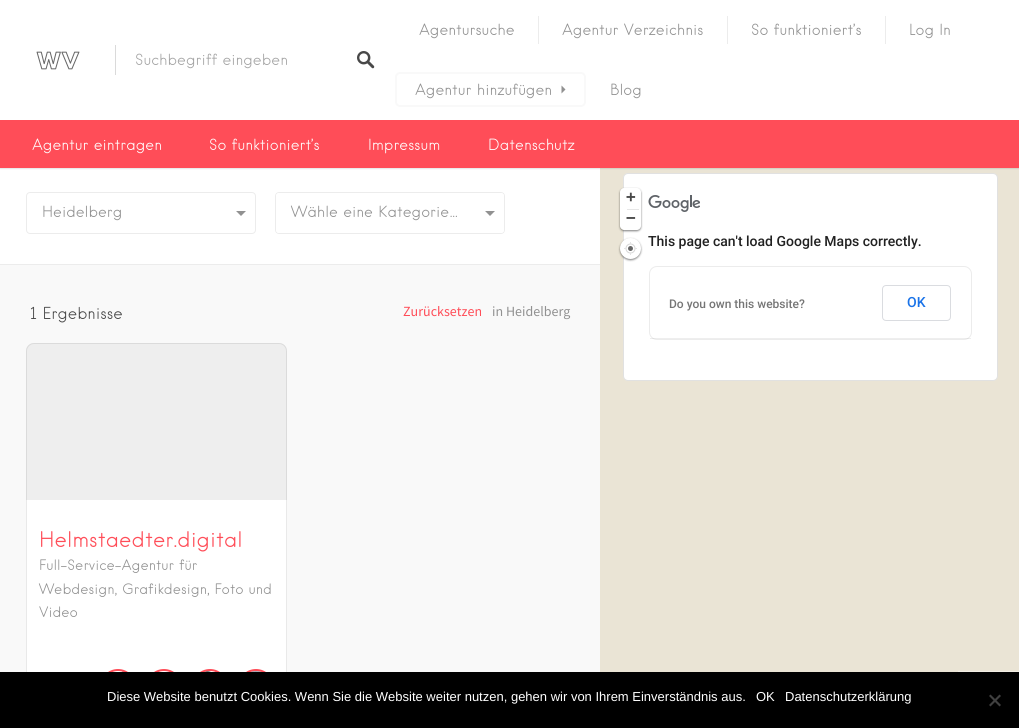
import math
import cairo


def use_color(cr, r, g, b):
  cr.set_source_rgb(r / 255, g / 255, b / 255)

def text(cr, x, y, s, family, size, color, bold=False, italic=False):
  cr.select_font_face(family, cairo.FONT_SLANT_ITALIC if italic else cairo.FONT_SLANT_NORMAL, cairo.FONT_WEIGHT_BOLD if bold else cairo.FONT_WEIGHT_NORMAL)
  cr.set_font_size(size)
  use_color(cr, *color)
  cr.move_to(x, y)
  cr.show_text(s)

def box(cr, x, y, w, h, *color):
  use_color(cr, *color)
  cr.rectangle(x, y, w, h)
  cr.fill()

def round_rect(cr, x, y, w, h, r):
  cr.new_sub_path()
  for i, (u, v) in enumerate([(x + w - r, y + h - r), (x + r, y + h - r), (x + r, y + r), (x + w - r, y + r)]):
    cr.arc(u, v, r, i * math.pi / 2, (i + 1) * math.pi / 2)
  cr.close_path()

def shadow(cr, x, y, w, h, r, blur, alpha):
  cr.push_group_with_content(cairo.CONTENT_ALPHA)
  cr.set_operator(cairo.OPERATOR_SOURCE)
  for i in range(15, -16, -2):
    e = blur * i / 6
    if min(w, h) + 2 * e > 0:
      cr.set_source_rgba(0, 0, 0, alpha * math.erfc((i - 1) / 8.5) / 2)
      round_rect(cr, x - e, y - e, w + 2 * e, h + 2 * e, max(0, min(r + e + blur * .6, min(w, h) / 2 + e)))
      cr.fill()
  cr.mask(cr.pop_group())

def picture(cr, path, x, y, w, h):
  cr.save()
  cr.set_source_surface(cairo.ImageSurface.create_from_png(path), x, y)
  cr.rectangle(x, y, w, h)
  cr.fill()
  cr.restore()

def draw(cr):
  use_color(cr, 249, 249, 249)
  cr.paint()
  box(cr, 0, 168, 600, 96, 255, 255, 255)
  box(cr, 600, 168, 419, 504, 234, 228, 213)
  use_color(cr, 0, 0, 0)
  shadow(cr, 0, 0, 1019, 168, 0, 1, 0.25)
  box(cr, 0, 0, 1019, 120, 255, 255, 255)
  box(cr, 538, 16, 1, 28, 236, 236, 236)
  box(cr, 727, 16, 1, 28, 236, 236, 236)
  box(cr, 885, 16, 1, 28, 236, 236, 236)
  round_rect(cr, 396, 73, 189, 33, 4)
  use_color(cr, 249, 249, 249)
  cr.stroke()
  use_color(cr, 145, 145, 145)
  cr.new_path()
  cr.move_to(561.5, 93.5)
  cr.line_to(561.5, 85.5)
  cr.line_to(565.5, 89.5)
  cr.close_path()
  cr.fill()
  box(cr, 0, 120, 1019, 48, 255, 77, 88)
  picture(cr, "img_01.png", 36, 51, 44, 19)
  box(cr, 115, 45, 1, 30, 218, 218, 218)
  picture(cr, "img_02.png", 357, 51, 18, 18)
  box(cr, 0, 264, 600, 1, 236, 236, 236)
  round_rect(cr, 26.5, 192.5, 229, 41, 3.5)
  cr.set_line_width(1)
  cr.stroke()
  use_color(cr, 145, 145, 145)
  cr.new_path()
  cr.move_to(236, 211)
  cr.line_to(246, 211)
  cr.line_to(241, 216)
  cr.close_path()
  cr.fill()
  round_rect(cr, 275.5, 192.5, 229, 41, 3.5)
  use_color(cr, 236, 236, 236)
  cr.stroke()
  use_color(cr, 255, 255, 255)
  round_rect(cr, 276, 193, 228, 40, 3)
  cr.fill()
  use_color(cr, 145, 145, 145)
  cr.new_path()
  cr.move_to(485, 211)
  cr.line_to(495, 211)
  cr.line_to(490, 216)
  cr.close_path()
  cr.fill()
  use_color(cr, 255, 255, 255)
  round_rect(cr, 623, 173, 375, 208, 5)
  cr.fill()
  round_rect(cr, 623.5, 173.5, 374, 207, 4.5)
  cr.set_source_rgba(0, 0, 0, 0.12)
  cr.stroke()
  use_color(cr, 0, 0, 0)
  shadow(cr, 620, 239, 21, 21, 10.5, 1, 0.5)
  use_color(cr, 255, 255, 255)
  cr.arc(630.5, 248.5, 10.5, 0, 2 * math.pi)
  cr.fill()
  picture(cr, "img_03.png", 624, 242, 13, 13)
  round_rect(cr, 26, 343, 261, 375, 8)
  cr.fill()
  cr.set_source_rgba(0, 0, 0, 0.07)
  cr.new_path()
  cr.move_to(34, 343)
  cr.line_to(279, 343)
  cr.curve_to(283.5, 343, 287, 346.5, 287, 351)
  cr.line_to(287, 500)
  cr.line_to(26, 500)
  cr.line_to(26, 351)
  cr.curve_to(26, 346.5, 29.5, 343, 34, 343)
  cr.close_path()
  cr.fill()
  cr.arc(118, 687, 17, 0, 2 * math.pi)
  use_color(cr, 255, 77, 88)
  cr.set_line_width(2)
  cr.stroke()
  picture(cr, "img_04.png", 122, 671, 1, 1)
  cr.arc(164, 687, 17, 0, 2 * math.pi)
  cr.stroke()
  cr.arc(210, 687, 17, 0, 2 * math.pi)
  cr.stroke()
  picture(cr, "img_05.png", 205, 671, 6, 1)
  cr.arc(256, 687, 17, 0, 2 * math.pi)
  cr.stroke()
  picture(cr, "img_06.png", 251, 671, 10, 1)
  round_rect(cr, 26.5, 343.5, 260, 374, 7.5)
  cr.set_source_rgba(0.569, 0.569, 0.569, 0.2)
  cr.set_line_width(1)
  cr.stroke()
  use_color(cr, 0, 0, 0)
  shadow(cr, 620, 189, 21, 42, 4, 1, 0.5)
  use_color(cr, 255, 255, 255)
  cr.new_path()
  cr.move_to(624, 188)
  cr.line_to(637, 188)
  cr.curve_to(639, 188, 641, 190, 641, 192)
  cr.line_to(641, 209)
  cr.line_to(620, 209)
  cr.line_to(620, 192)
  cr.curve_to(620, 190, 622, 188, 624, 188)
  cr.close_path()
  cr.fill()
  cr.new_path()
  cr.move_to(620, 209)
  cr.line_to(641, 209)
  cr.line_to(641, 226)
  cr.curve_to(641, 228, 639, 230, 637, 230)
  cr.line_to(624, 230)
  cr.curve_to(622, 230, 620, 228, 620, 226)
  cr.close_path()
  cr.fill()
  box(cr, 627, 209, 12, 1, 230, 230, 230)
  box(cr, 958, 671, 61, 1, 242, 238, 228)
  picture(cr, "img_07.png", 648, 195, 52, 17)
  round_rect(cr, 649.5, 266.5, 322, 73, 7.5)
  use_color(cr, 236, 236, 236)
  cr.stroke()
  cr.set_source_rgba(0, 0, 0, 0.07)
  cr.rectangle(650, 338, 321, 1)
  cr.fill()
  round_rect(cr, 882.5, 285.5, 68, 35, 3.5)
  use_color(cr, 218, 220, 224)
  cr.stroke()
  box(cr, 0, 672, 1019, 56, 0, 0, 0)
  use_color(cr, 64, 64, 64)
  cr.new_path()
  cr.move_to(999.5, 694.5)
  cr.line_to(1001, 696)
  cr.line_to(990.5, 706.5)
  cr.line_to(989, 705)
  cr.close_path()
  cr.fill()
  cr.new_path()
  cr.move_to(989, 696)
  cr.line_to(990.5, 694.5)
  cr.line_to(1001, 705)
  cr.line_to(999.5, 706.5)
  cr.close_path()
  cr.fill()
  text(cr, 419, 35, "Agentursuche", "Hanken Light", 15, (145, 145, 145))
  text(cr, 562, 35, "Agentur Verzeichnis", "Hanken Light", 15, (145, 145, 145))
  text(cr, 751, 35, "So funktioniert’s", "Hanken Light", 15, (145, 145, 145))
  text(cr, 909, 35, "Log In", "Hanken Light", 15, (145, 145, 145))
  text(cr, 415, 95, "Agentur hinzufügen", "Hanken Light", 15, (145, 145, 145))
  text(cr, 610, 95, "Blog", "Hanken Light", 15, (145, 145, 145))
  text(cr, 32, 150, "Agentur eintragen", "Hanken Light", 15, (255, 255, 255))
  text(cr, 209, 150, "So funktioniert’s", "Hanken Light", 15, (255, 255, 255))
  text(cr, 368, 150, "Impressum", "Hanken Light", 15, (255, 255, 255))
  text(cr, 488, 150, "Datenschutz", "Hanken Light", 15, (255, 255, 255))
  text(cr, 135, 65, "Suchbegriff eingeben", "Hanken Light", 15, (164, 164, 164))
  text(cr, 42, 217, "Heidelberg", "Hanken Light", 15, (145, 145, 145))
  text(cr, 291, 217, "Wähle eine Kategorie…", "Hanken Light", 15, (145, 145, 145))
  text(cr, 30, 319, "1 Ergebnisse", "Hanken Light", 16, (72, 72, 72))
  text(cr, 403, 316, "Zurücksetzen", "Source Sans Pro", 14, (255, 77, 88))
  text(cr, 492, 316, "in Heidelberg", "Source Sans Pro", 14, (145, 145, 145))
  text(cr, 39, 547, "Helmstaedter.digital", "Hanken Light", 21, (255, 77, 88))
  text(cr, 39, 570, "Full-Service-Agentur für", "Hanken Light", 14, (145, 145, 145))
  text(cr, 39, 594, "Webdesign, Grafikdesign, Foto und", "Hanken Light", 14, (145, 145, 145))
  text(cr, 39, 617, "Video", "Hanken Light", 14, (145, 145, 145))
  text(cr, 626, 202, "+", "DejaVu Sans Mono", 16, (72, 72, 72), bold=True)
  text(cr, 626, 223, "−", "DejaVu Sans Mono", 16, (72, 72, 72), bold=True)
  text(cr, 648, 246, "This page can't load Google Maps correctly.", "Roboto Medium", 14, (33, 33, 33))
  text(cr, 669, 308, "Do you own this website?", "Roboto Medium", 12, (117, 117, 117))
  text(cr, 907, 307, "OK", "Roboto Medium", 14, (26, 115, 232))
  text(cr, 107, 701, "Diese Website benutzt Cookies. Wenn Sie die Website weiter nutzen, gehen wir von Ihrem Einverständnis aus.", "Liberation Sans", 13, (255, 255, 255))
  text(cr, 756, 701, "OK", "Liberation Sans", 13, (255, 255, 255))
  text(cr, 785, 701, "Datenschutzerklärung", "Liberation Sans", 13, (255, 255, 255))


surface = cairo.ImageSurface(cairo.FORMAT_RGB24, 1019, 728)
cr = cairo.Context(surface)
options = cairo.FontOptions()
options.set_hint_metrics(cairo.HINT_METRICS_OFF)
options.set_hint_style(cairo.HINT_STYLE_NONE)
cr.set_font_options(options)
cr.set_miter_limit(4)
draw(cr)
surface.write_to_png("out.png")
